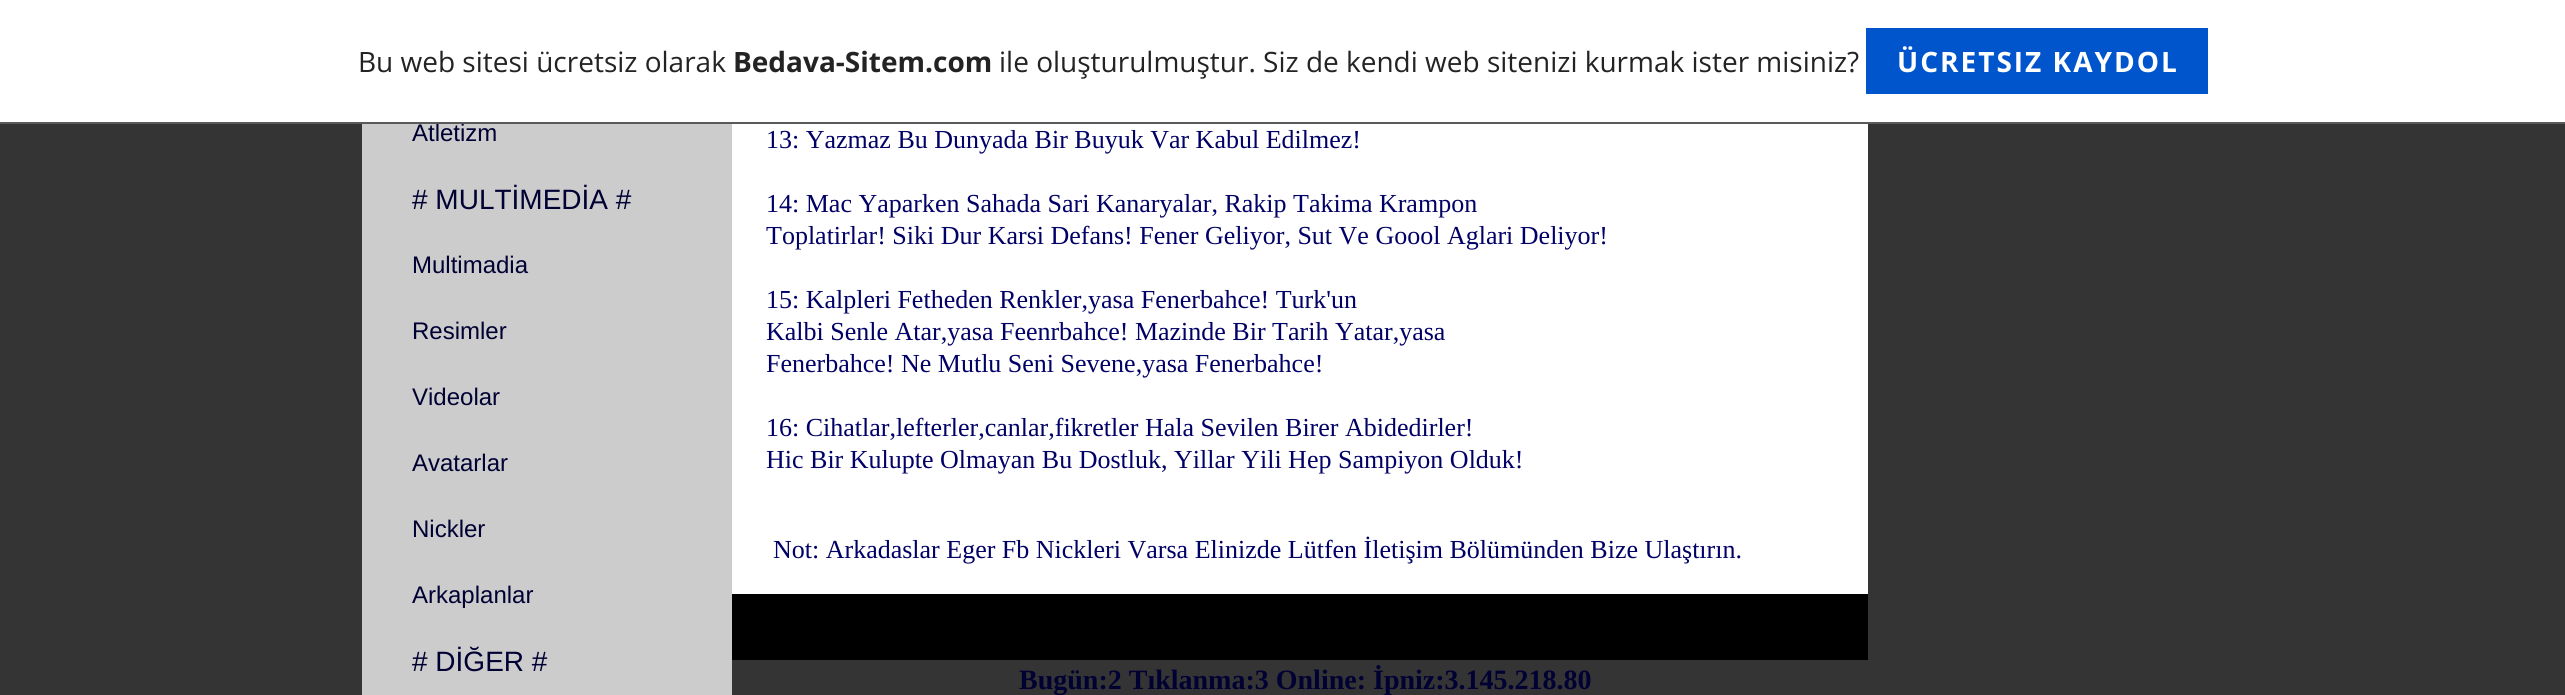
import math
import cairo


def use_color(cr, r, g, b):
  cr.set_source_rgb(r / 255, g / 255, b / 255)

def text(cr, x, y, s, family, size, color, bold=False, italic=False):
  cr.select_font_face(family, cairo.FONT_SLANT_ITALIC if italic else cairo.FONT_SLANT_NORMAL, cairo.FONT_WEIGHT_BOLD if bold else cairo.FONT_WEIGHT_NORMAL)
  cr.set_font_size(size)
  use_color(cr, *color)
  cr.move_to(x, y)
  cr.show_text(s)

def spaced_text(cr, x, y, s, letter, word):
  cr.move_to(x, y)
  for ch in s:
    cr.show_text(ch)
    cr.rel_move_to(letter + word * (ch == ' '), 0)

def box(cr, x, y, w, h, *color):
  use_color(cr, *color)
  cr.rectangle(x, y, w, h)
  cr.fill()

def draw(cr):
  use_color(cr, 52, 52, 52)
  cr.paint()
  box(cr, 0, 0, 2565, 122, 255, 255, 255)
  box(cr, 1866, 28, 342, 66, 0, 85, 204)
  box(cr, 362, 124, 370, 571, 204, 204, 204)
  box(cr, 732, 124, 1136, 470, 255, 255, 255)
  box(cr, 732, 594, 1136, 66, 0, 0, 0)
  text(cr, 358, 72, "Bu web sitesi ücretsiz olarak", "Open Sans", 28, (35, 35, 35))
  text(cr, 733, 72, "Bedava-Sitem.com", "Open Sans", 28, (35, 35, 35), bold=True)
  text(cr, 999, 72, "ile oluşturulmuştur. Siz de kendi web sitenizi kurmak ister misiniz?", "Open Sans", 28, (35, 35, 35))
  cr.select_font_face("Open Sans", cairo.FONT_SLANT_NORMAL, cairo.FONT_WEIGHT_BOLD)
  use_color(cr, 255, 255, 255)
  spaced_text(cr, 1897, 72, "ÜCRETSIZ KAYDOL", 2, 0)
  text(cr, 412, 141, "Atletizm", "Liberation Sans", 24, (0, 0, 51))
  box(cr, 0, 122, 2565, 2, 90, 90, 90)
  text(cr, 412, 209, "# MULTİMEDİA #", "Liberation Sans", 28, (0, 0, 51))
  text(cr, 412, 273, "Multimadia", "Liberation Sans", 24, (0, 0, 51))
  text(cr, 412, 339, "Resimler", "Liberation Sans", 24, (0, 0, 51))
  text(cr, 412, 405, "Videolar", "Liberation Sans", 24, (0, 0, 51))
  text(cr, 412, 471, "Avatarlar", "Liberation Sans", 24, (0, 0, 51))
  text(cr, 412, 537, "Nickler", "Liberation Sans", 24, (0, 0, 51))
  text(cr, 412, 603, "Arkaplanlar", "Liberation Sans", 24, (0, 0, 51))
  text(cr, 412, 671, "# DİĞER #", "Liberation Sans", 28, (0, 0, 51))
  text(cr, 766, 148, "13: Yazmaz Bu Dunyada Bir Buyuk Var Kabul Edilmez!", "Liberation Serif", 26, (0, 0, 102))
  text(cr, 766, 212, "14: Mac Yaparken Sahada Sari Kanaryalar, Rakip Takima Krampon", "Liberation Serif", 26, (0, 0, 102))
  text(cr, 766, 244, "Toplatirlar! Siki Dur Karsi Defans! Fener Geliyor, Sut Ve Goool Aglari Deliyor!", "Liberation Serif", 26, (0, 0, 102))
  text(cr, 766, 308, "15: Kalpleri Fetheden Renkler,yasa Fenerbahce! Turk'un", "Liberation Serif", 26, (0, 0, 102))
  text(cr, 766, 340, "Kalbi Senle Atar,yasa Feenrbahce! Mazinde Bir Tarih Yatar,yasa", "Liberation Serif", 26, (0, 0, 102))
  text(cr, 766, 372, "Fenerbahce! Ne Mutlu Seni Sevene,yasa Fenerbahce!", "Liberation Serif", 26, (0, 0, 102))
  text(cr, 766, 436, "16: Cihatlar,lefterler,canlar,fikretler Hala Sevilen Birer Abidedirler!", "Liberation Serif", 26, (0, 0, 102))
  text(cr, 766, 468, "Hic Bir Kulupte Olmayan Bu Dostluk, Yillar Yili Hep Sampiyon Olduk!", "Liberation Serif", 26, (0, 0, 102))
  text(cr, 773, 558, "Not: Arkadaslar Eger Fb Nickleri Varsa Elinizde Lütfen İletişim Bölümünden Bize Ulaştırın.", "Liberation Serif", 26, (0, 0, 102))
  text(cr, 1019, 689, "Bugün:2 Tıklanma:3 Online: İpniz:3.145.218.80", "Liberation Serif", 28, (0, 0, 51), bold=True)


surface = cairo.ImageSurface(cairo.FORMAT_RGB24, 2565, 695)
cr = cairo.Context(surface)
options = cairo.FontOptions()
options.set_hint_metrics(cairo.HINT_METRICS_OFF)
options.set_hint_style(cairo.HINT_STYLE_NONE)
cr.set_font_options(options)
cr.set_miter_limit(4)
draw(cr)
surface.write_to_png("out.png")
